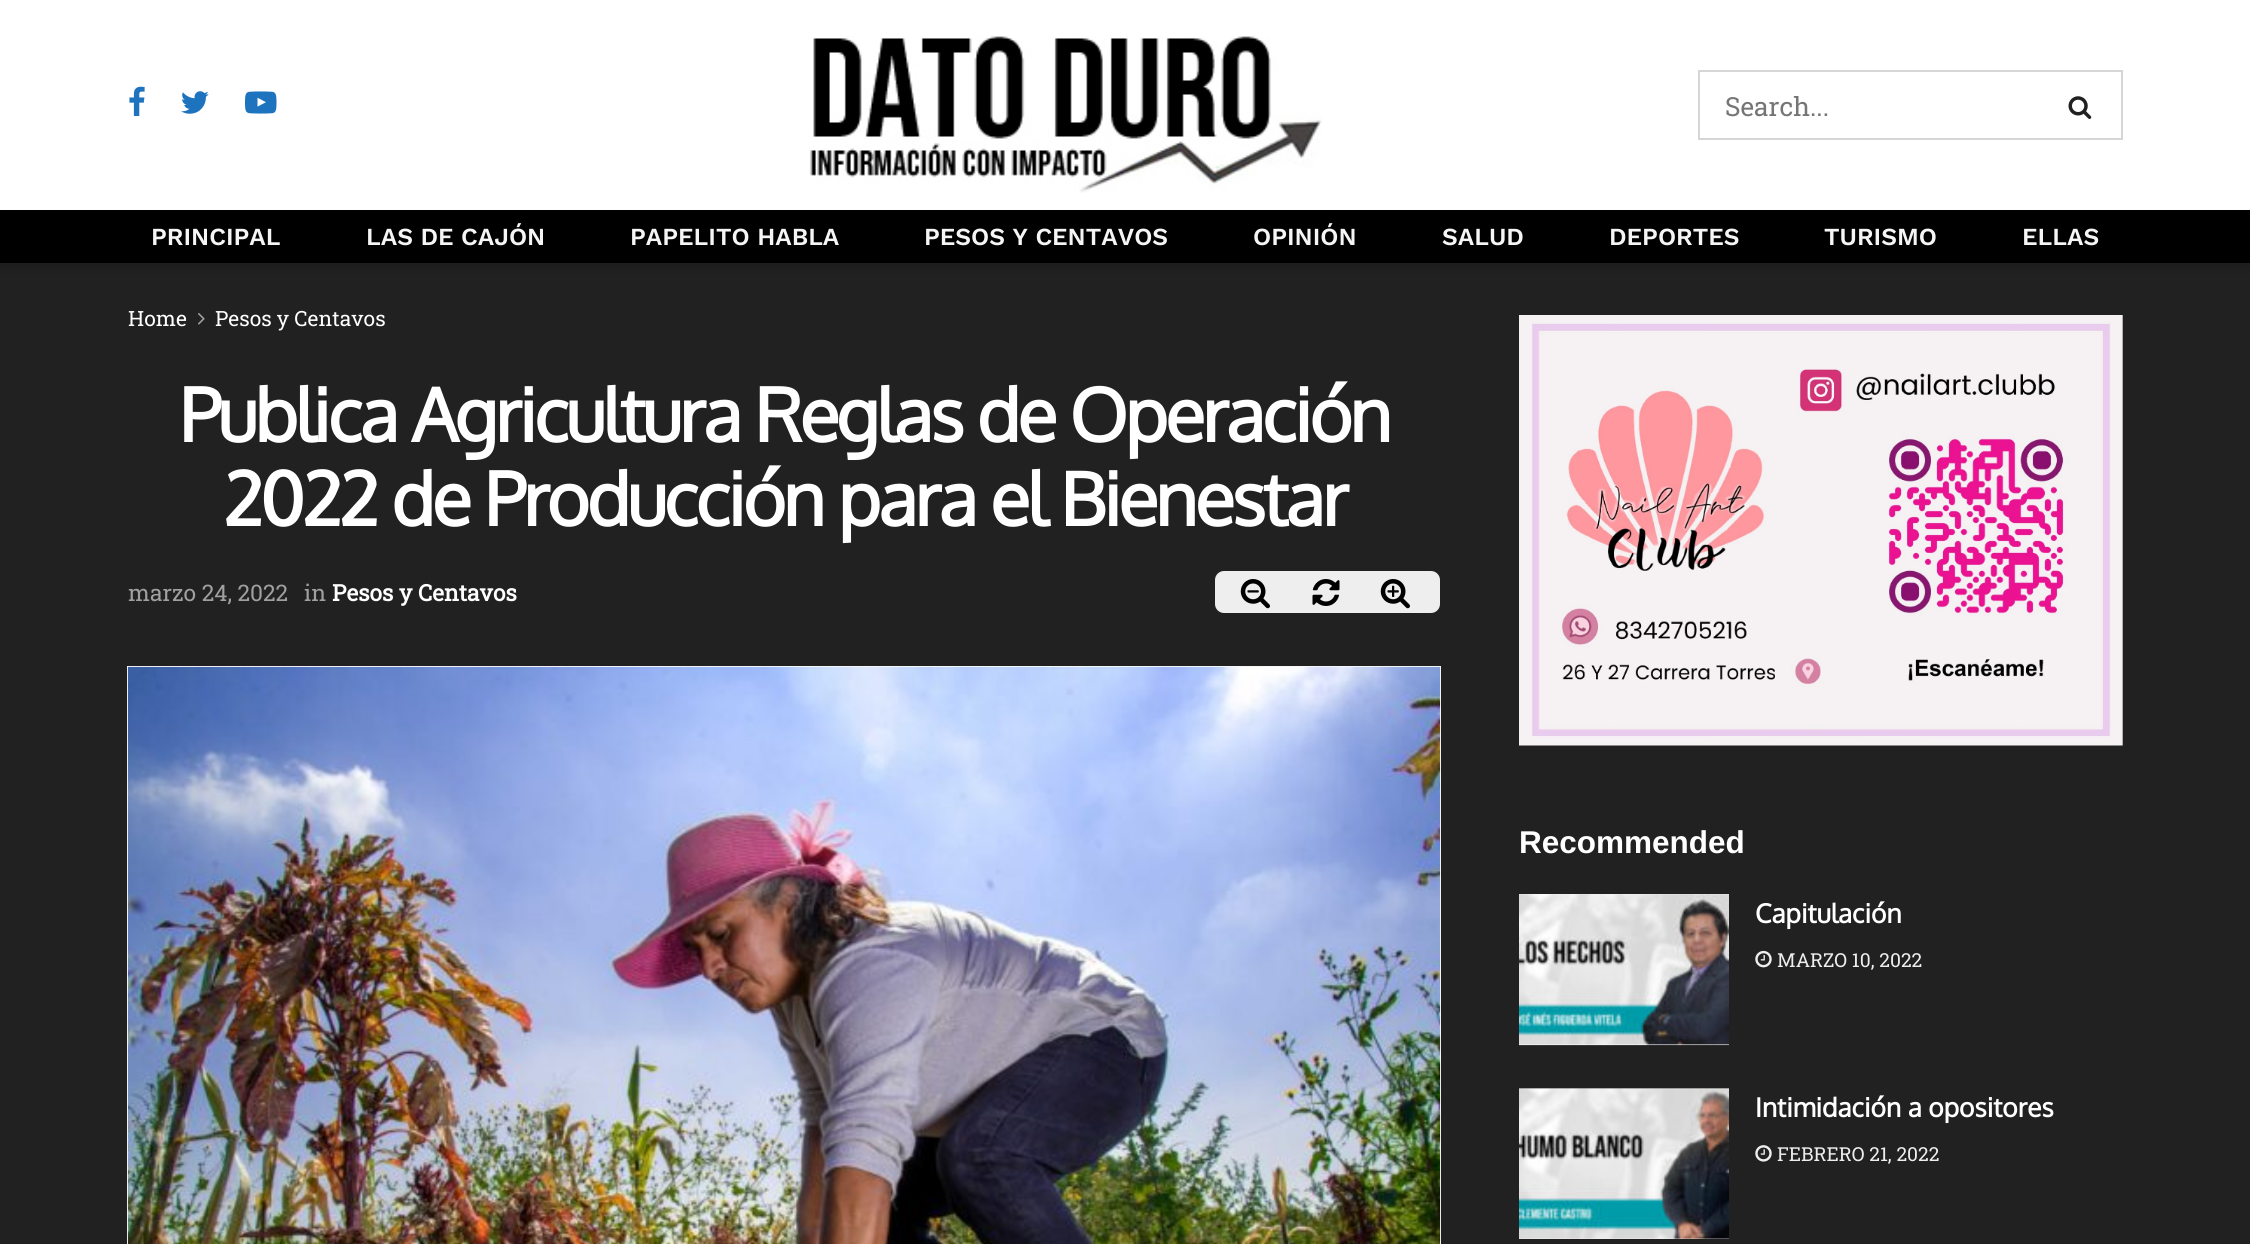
import math
import cairo


def use_color(cr, r, g, b):
  cr.set_source_rgb(r / 255, g / 255, b / 255)

def text(cr, x, y, s, family, size, color, bold=False, italic=False):
  cr.select_font_face(family, cairo.FONT_SLANT_ITALIC if italic else cairo.FONT_SLANT_NORMAL, cairo.FONT_WEIGHT_BOLD if bold else cairo.FONT_WEIGHT_NORMAL)
  cr.set_font_size(size)
  use_color(cr, *color)
  cr.move_to(x, y)
  cr.show_text(s)

def spaced_text(cr, x, y, s, letter, word):
  cr.move_to(x, y)
  for ch in s:
    cr.show_text(ch)
    cr.rel_move_to(letter + word * (ch == ' '), 0)

def box(cr, x, y, w, h, *color):
  use_color(cr, *color)
  cr.rectangle(x, y, w, h)
  cr.fill()

def round_rect(cr, x, y, w, h, r):
  cr.new_sub_path()
  for i, (u, v) in enumerate([(x + w - r, y + h - r), (x + r, y + h - r), (x + r, y + r), (x + w - r, y + r)]):
    cr.arc(u, v, r, i * math.pi / 2, (i + 1) * math.pi / 2)
  cr.close_path()

def picture(cr, path, x, y, w, h):
  cr.save()
  cr.set_source_surface(cairo.ImageSurface.create_from_png(path), x, y)
  cr.rectangle(x, y, w, h)
  cr.fill()
  cr.restore()

def draw(cr):
  use_color(cr, 255, 255, 255)
  cr.paint()
  picture(cr, "img_01.png", 129, 86, 16, 30)
  picture(cr, "img_02.png", 181, 91, 28, 23)
  picture(cr, "img_03.png", 245, 91, 32, 23)
  picture(cr, "img_04.png", 809, 36, 513, 157)
  cr.rectangle(1699, 71, 423, 68)
  use_color(cr, 214, 214, 214)
  cr.stroke()
  picture(cr, "img_05.png", 2068, 96, 24, 23)
  box(cr, 0, 210, 2250, 53, 0, 0, 0)
  gradient = cairo.LinearGradient(1125, 262, 1125, 275)
  gradient.add_color_stop_rgba(0, 0.11, 0.11, 0.11, 1)
  gradient.add_color_stop_rgba(1, 0.129, 0.129, 0.129, 1)
  cr.set_source(gradient)
  cr.rectangle(0, 263, 2250, 12)
  cr.fill()
  box(cr, 0, 275, 2250, 969, 33, 33, 33)
  picture(cr, "img_06.png", 198, 313, 7, 12)
  use_color(cr, 238, 238, 238)
  round_rect(cr, 1215, 571, 225, 42, 9)
  cr.fill()
  picture(cr, "img_07.png", 1240, 579, 30, 30)
  picture(cr, "img_08.png", 1312, 579, 28, 27)
  picture(cr, "img_09.png", 1380, 579, 30, 30)
  box(cr, 127, 666, 1314, 578, 247, 247, 247)
  picture(cr, "img_10.png", 127, 666, 1314, 578)
  picture(cr, "img_11.png", 1519, 315, 604, 431)
  box(cr, 1519, 894, 210, 151, 247, 247, 247)
  box(cr, 1519, 1045, 210, 1, 45, 45, 45)
  picture(cr, "img_12.png", 1519, 894, 210, 152)
  picture(cr, "img_13.png", 1755, 950, 17, 18)
  box(cr, 1519, 1089, 210, 150, 247, 247, 247)
  box(cr, 1519, 1088, 210, 1, 122, 122, 122)
  picture(cr, "img_14.png", 1519, 1088, 210, 151)
  picture(cr, "img_15.png", 1755, 1145, 17, 17)
  text(cr, 1725, 116, "Search...", "Roboto Slab", 26.25, (117, 117, 117))
  text(cr, 151, 245, "PRINCIPAL", "Work Sans SemiBold", 24.5, (245, 245, 245))
  text(cr, 366, 245, "LAS DE CAJÓN", "Work Sans SemiBold", 24.5, (245, 245, 245))
  text(cr, 630, 245, "PAPELITO HABLA", "Work Sans SemiBold", 24.5, (245, 245, 245))
  text(cr, 924, 245, "PESOS Y CENTAVOS", "Work Sans SemiBold", 24.5, (245, 245, 245))
  text(cr, 1253, 245, "OPINIÓN", "Work Sans SemiBold", 24.5, (245, 245, 245))
  text(cr, 1442, 245, "SALUD", "Work Sans SemiBold", 24.5, (245, 245, 245))
  text(cr, 1609, 245, "DEPORTES", "Work Sans SemiBold", 24.5, (245, 245, 245))
  text(cr, 1824, 245, "TURISMO", "Work Sans SemiBold", 24.5, (245, 245, 245))
  text(cr, 2022, 245, "ELLAS", "Work Sans SemiBold", 24.5, (245, 245, 245))
  text(cr, 128, 326, "Home", "Roboto Slab", 21, (255, 255, 255))
  text(cr, 215, 326, "Pesos y Centavos", "Roboto Slab", 21, (255, 255, 255))
  cr.select_font_face("Oxygen", cairo.FONT_SLANT_NORMAL, cairo.FONT_WEIGHT_BOLD)
  cr.set_font_size(73.5)
  spaced_text(cr, 179, 442, "Publica Agricultura Reglas de Operación", -2.95, 0)
  spaced_text(cr, 223, 526, "2022 de Producción para el Bienestar", -2.95, 0)
  text(cr, 128, 601, "marzo 24, 2022", "Roboto Slab", 22.75, (160, 160, 160))
  text(cr, 304, 601, "in", "Roboto Slab", 22.75, (160, 160, 160))
  text(cr, 332, 601, "Pesos y Centavos", "Roboto Slab", 22.75, (255, 255, 255), bold=True)
  text(cr, 1519, 853, "Recommended", "Liberation Sans", 31.5, (255, 255, 255), bold=True)
  text(cr, 1755, 923, "Capitulación", "Oxygen", 26.25, (255, 255, 255), bold=True)
  text(cr, 1777, 967, "MARZO 10, 2022", "Roboto Slab", 19.25, (238, 238, 238))
  text(cr, 1755, 1117, "Intimidación a opositores", "Oxygen", 26.25, (255, 255, 255), bold=True)
  text(cr, 1777, 1161, "FEBRERO 21, 2022", "Roboto Slab", 19.25, (238, 238, 238))


surface = cairo.ImageSurface(cairo.FORMAT_RGB24, 2250, 1244)
cr = cairo.Context(surface)
options = cairo.FontOptions()
options.set_hint_metrics(cairo.HINT_METRICS_OFF)
options.set_hint_style(cairo.HINT_STYLE_NONE)
cr.set_font_options(options)
cr.set_miter_limit(4)
draw(cr)
surface.write_to_png("out.png")
